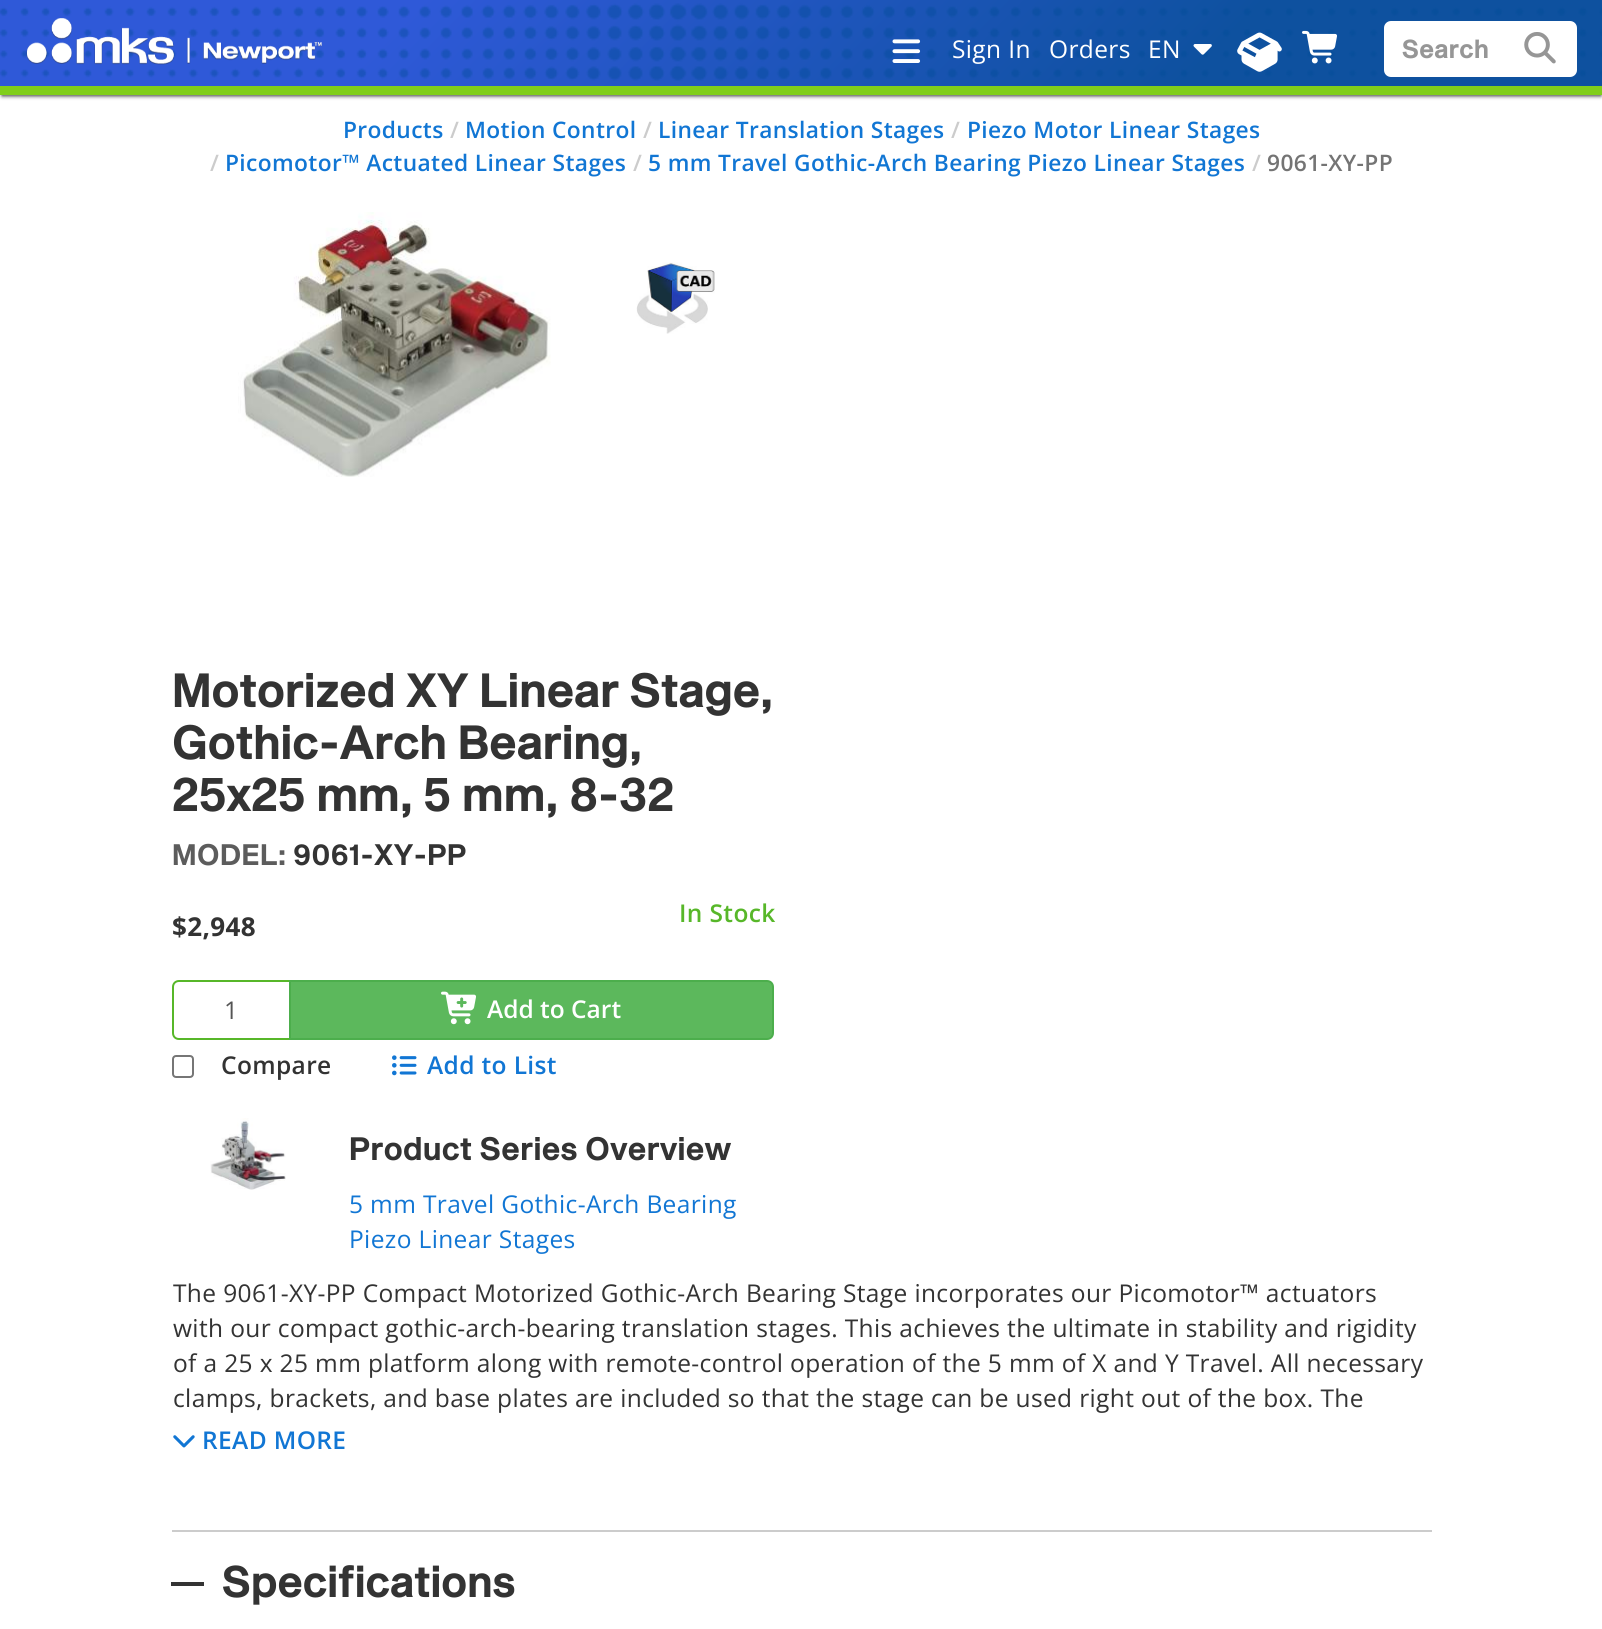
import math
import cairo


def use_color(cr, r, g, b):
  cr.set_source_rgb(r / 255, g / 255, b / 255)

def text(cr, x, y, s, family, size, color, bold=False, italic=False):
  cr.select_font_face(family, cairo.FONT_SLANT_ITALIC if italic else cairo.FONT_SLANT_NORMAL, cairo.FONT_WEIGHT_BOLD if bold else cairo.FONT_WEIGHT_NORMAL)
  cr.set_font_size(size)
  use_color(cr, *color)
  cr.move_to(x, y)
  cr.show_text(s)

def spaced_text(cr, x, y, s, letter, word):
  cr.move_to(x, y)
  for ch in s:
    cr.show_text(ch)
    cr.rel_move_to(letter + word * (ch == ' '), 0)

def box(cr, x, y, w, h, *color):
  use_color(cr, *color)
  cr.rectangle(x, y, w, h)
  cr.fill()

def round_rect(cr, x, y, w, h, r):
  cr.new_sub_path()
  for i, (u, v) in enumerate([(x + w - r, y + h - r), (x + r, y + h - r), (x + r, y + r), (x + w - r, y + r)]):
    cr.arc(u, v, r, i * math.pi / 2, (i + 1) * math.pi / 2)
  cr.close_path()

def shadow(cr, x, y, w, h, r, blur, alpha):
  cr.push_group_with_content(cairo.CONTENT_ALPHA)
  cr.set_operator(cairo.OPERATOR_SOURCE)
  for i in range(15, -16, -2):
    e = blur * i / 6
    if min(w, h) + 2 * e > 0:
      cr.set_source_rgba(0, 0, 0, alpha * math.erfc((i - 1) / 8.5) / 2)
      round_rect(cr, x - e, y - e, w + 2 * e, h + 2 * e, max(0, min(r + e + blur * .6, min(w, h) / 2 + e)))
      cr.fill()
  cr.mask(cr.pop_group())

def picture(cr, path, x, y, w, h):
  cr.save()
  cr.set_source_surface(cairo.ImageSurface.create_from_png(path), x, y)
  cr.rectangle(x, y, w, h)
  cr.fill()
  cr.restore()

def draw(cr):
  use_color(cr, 255, 255, 255)
  cr.paint()
  use_color(cr, 51, 51, 51)
  shadow(cr, 2, 5, 1599, 91, 0, 2, 1)
  gradient = cairo.LinearGradient(379, -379, 1224, 465)
  gradient.add_color_stop_rgba(0.25, 0.184, 0.349, 0.847, 1)
  gradient.add_color_stop_rgba(0.75, 0.055, 0.318, 0.624, 1)
  cr.set_source(gradient)
  cr.rectangle(0, 0, 1602, 86)
  cr.fill()
  box(cr, 0, 86, 1602, 9, 128, 206, 26)
  picture(cr, "img_01.png", 0, 3, 1602, 78)
  picture(cr, "img_02.png", 26, 18, 296, 47)
  picture(cr, "img_03.png", 892, 39, 29, 24)
  picture(cr, "img_04.png", 1193, 44, 19, 11)
  picture(cr, "img_05.png", 1237, 32, 45, 40)
  picture(cr, "img_06.png", 1302, 30, 35, 34)
  use_color(cr, 255, 255, 255)
  round_rect(cr, 1384, 21, 193, 56, 7)
  cr.fill()
  picture(cr, "img_07.png", 1524, 32, 32, 32)
  picture(cr, "img_08.png", 238, 212, 313, 265)
  picture(cr, "img_09.png", 636, 262, 79, 72)
  cr.new_path()
  cr.move_to(179, 981)
  cr.line_to(290, 981)
  cr.line_to(290, 1039)
  cr.line_to(179, 1039)
  cr.curve_to(175.5, 1039, 173, 1036.5, 173, 1033)
  cr.line_to(173, 987)
  cr.curve_to(173, 983.5, 175.5, 981, 179, 981)
  cr.close_path()
  use_color(cr, 87, 183, 41)
  cr.stroke()
  use_color(cr, 92, 184, 92)
  cr.new_path()
  cr.move_to(290, 981)
  cr.line_to(767, 981)
  cr.curve_to(770.5, 981, 773, 983.5, 773, 987)
  cr.line_to(773, 1033)
  cr.curve_to(773, 1036.5, 770.5, 1039, 767, 1039)
  cr.line_to(290, 1039)
  cr.close_path()
  cr.fill_preserve()
  use_color(cr, 76, 174, 76)
  cr.stroke()
  picture(cr, "img_10.png", 441, 991, 35, 34)
  round_rect(cr, 173, 1056, 20, 21, 3)
  use_color(cr, 118, 118, 118)
  cr.stroke()
  picture(cr, "img_11.png", 392, 1055, 25, 21)
  picture(cr, "img_12.png", 210, 1118, 76, 72)
  picture(cr, "img_13.png", 173, 1435, 22, 13)
  box(cr, 172, 1530, 1260, 2, 204, 204, 204)
  box(cr, 171, 1582, 33, 4, 51, 51, 51)
  cr.select_font_face("Open Sans")
  cr.set_font_size(24.5)
  use_color(cr, 255, 255, 255)
  spaced_text(cr, 952, 58, "Sign In", 0.37, 0)
  spaced_text(cr, 1049, 58, "Orders", 0.37, 0)
  spaced_text(cr, 1148, 58, "EN", 0.37, 0)
  cr.select_font_face("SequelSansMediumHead", cairo.FONT_SLANT_NORMAL, cairo.FONT_WEIGHT_BOLD)
  use_color(cr, 150, 150, 150)
  spaced_text(cr, 1402, 58, "Search", 1, 0)
  cr.select_font_face("Open Sans SemiBold")
  cr.set_font_size(22.75)
  use_color(cr, 17, 118, 212)
  spaced_text(cr, 343, 138, "Products", 0.37, 0)
  use_color(cr, 204, 204, 204)
  spaced_text(cr, 450, 138, "/", 0.37, 0)
  use_color(cr, 17, 118, 212)
  spaced_text(cr, 465, 138, "Motion Control", 0.37, 0)
  use_color(cr, 204, 204, 204)
  spaced_text(cr, 643, 138, "/", 0.37, 0)
  use_color(cr, 17, 118, 212)
  spaced_text(cr, 658, 138, "Linear Translation Stages", 0.37, 0)
  use_color(cr, 204, 204, 204)
  spaced_text(cr, 951, 138, "/", 0.37, 0)
  use_color(cr, 17, 118, 212)
  spaced_text(cr, 967, 138, "Piezo Motor Linear Stages", 0.37, 0)
  use_color(cr, 204, 204, 204)
  spaced_text(cr, 210, 171, "/", 0.37, 0)
  use_color(cr, 17, 118, 212)
  spaced_text(cr, 225, 171, "Picomotor™ Actuated Linear Stages", 0.37, 0)
  use_color(cr, 204, 204, 204)
  spaced_text(cr, 633, 171, "/", 0.37, 0)
  use_color(cr, 17, 118, 212)
  spaced_text(cr, 648, 171, "5 mm Travel Gothic-Arch Bearing Piezo Linear Stages", 0.37, 0)
  use_color(cr, 204, 204, 204)
  spaced_text(cr, 1252, 171, "/", 0.37, 0)
  use_color(cr, 116, 116, 116)
  spaced_text(cr, 1267, 171, "9061-XY-PP", 0.37, 0)
  cr.select_font_face("SequelSansMediumHead", cairo.FONT_SLANT_NORMAL, cairo.FONT_WEIGHT_BOLD)
  cr.set_font_size(45.25)
  use_color(cr, 51, 51, 51)
  spaced_text(cr, 172, 707, "Motorized XY Linear Stage,", 1.25, 0)
  spaced_text(cr, 172, 759, "Gothic-Arch Bearing,", 1.25, 0)
  spaced_text(cr, 172, 811, "25x25 mm, 5 mm, 8-32", 1.25, 0)
  cr.set_font_size(28)
  use_color(cr, 92, 92, 92)
  spaced_text(cr, 172, 865, "MODEL:", 1.25, 0)
  use_color(cr, 51, 51, 51)
  spaced_text(cr, 293, 865, "9061-XY-PP", 1.25, 0)
  cr.select_font_face("Open Sans SemiBold")
  cr.set_font_size(24.5)
  use_color(cr, 87, 183, 41)
  spaced_text(cr, 679, 922, "In Stock", 0.37, 0)
  cr.select_font_face("Open Sans", cairo.FONT_SLANT_NORMAL, cairo.FONT_WEIGHT_BOLD)
  cr.set_font_size(26)
  use_color(cr, 51, 51, 51)
  spaced_text(cr, 172, 936, "$2,948", 0.37, 0)
  text(cr, 224, 1019, "1", "Open Sans", 24.5, (85, 85, 85))
  text(cr, 487, 1018, "Add to Cart", "Open Sans SemiBold", 24.5, (255, 255, 255))
  use_color(cr, 51, 51, 51)
  spaced_text(cr, 221, 1074, "Compare", 0.37, 0)
  use_color(cr, 17, 118, 212)
  spaced_text(cr, 427, 1074, "Add to List", 0.37, 0)
  cr.select_font_face("SequelSansMediumHead", cairo.FONT_SLANT_NORMAL, cairo.FONT_WEIGHT_BOLD)
  cr.set_font_size(30.6)
  use_color(cr, 51, 51, 51)
  spaced_text(cr, 349, 1160, "Product Series Overview", 1.25, 0)
  cr.select_font_face("Open Sans")
  cr.set_font_size(24.5)
  use_color(cr, 17, 118, 212)
  spaced_text(cr, 349, 1213, "5 mm Travel Gothic-Arch Bearing", 0.37, 0)
  spaced_text(cr, 349, 1248, "Piezo Linear Stages", 0.37, 0)
  use_color(cr, 51, 51, 51)
  spaced_text(cr, 173, 1302, "The 9061-XY-PP Compact Motorized Gothic-Arch Bearing Stage incorporates our Picomotor™ actuators", 0.37, 0)
  spaced_text(cr, 173, 1337, "with our compact gothic-arch-bearing translation stages. This achieves the ultimate in stability and rigidity", 0.37, 0)
  spaced_text(cr, 173, 1372, "of a 25 x 25 mm platform along with remote-control operation of the 5 mm of X and Y Travel. All necessary", 0.37, 0)
  spaced_text(cr, 173, 1407, "clamps, brackets, and base plates are included so that the stage can be used right out of the box. The", 0.37, 0)
  cr.select_font_face("Open Sans SemiBold")
  use_color(cr, 17, 118, 212)
  spaced_text(cr, 202, 1449, "READ MORE", 0.37, 0)
  cr.select_font_face("SequelSansMediumHead", cairo.FONT_SLANT_NORMAL, cairo.FONT_WEIGHT_BOLD)
  cr.set_font_size(41.75)
  use_color(cr, 51, 51, 51)
  spaced_text(cr, 222, 1597, "Specifications", 1.25, 0)


surface = cairo.ImageSurface(cairo.FORMAT_RGB24, 1602, 1629)
cr = cairo.Context(surface)
options = cairo.FontOptions()
options.set_hint_metrics(cairo.HINT_METRICS_OFF)
options.set_hint_style(cairo.HINT_STYLE_NONE)
cr.set_font_options(options)
cr.set_miter_limit(4)
draw(cr)
surface.write_to_png("out.png")
